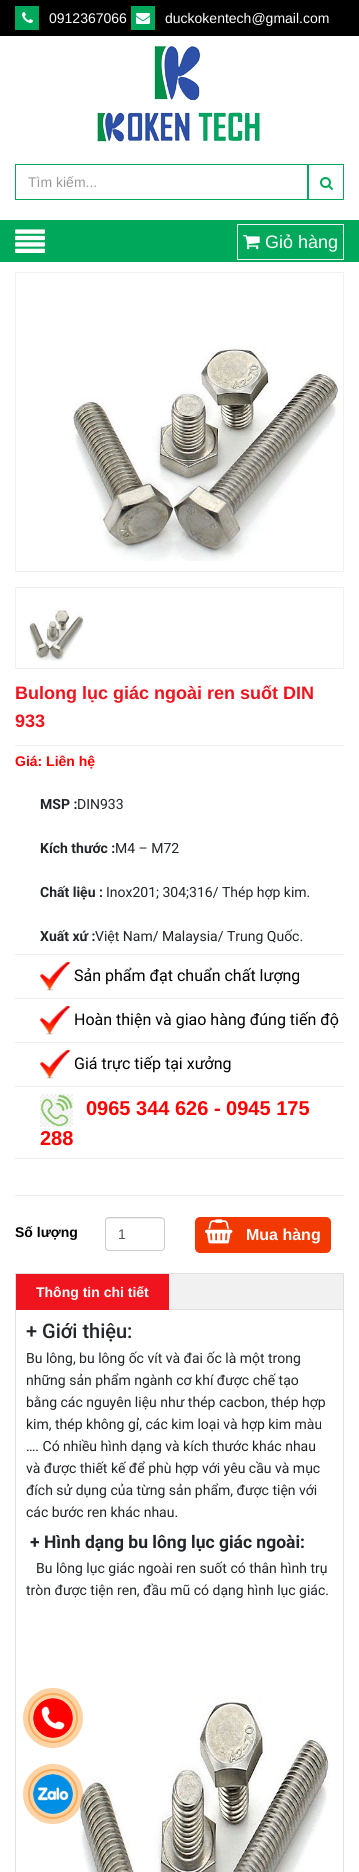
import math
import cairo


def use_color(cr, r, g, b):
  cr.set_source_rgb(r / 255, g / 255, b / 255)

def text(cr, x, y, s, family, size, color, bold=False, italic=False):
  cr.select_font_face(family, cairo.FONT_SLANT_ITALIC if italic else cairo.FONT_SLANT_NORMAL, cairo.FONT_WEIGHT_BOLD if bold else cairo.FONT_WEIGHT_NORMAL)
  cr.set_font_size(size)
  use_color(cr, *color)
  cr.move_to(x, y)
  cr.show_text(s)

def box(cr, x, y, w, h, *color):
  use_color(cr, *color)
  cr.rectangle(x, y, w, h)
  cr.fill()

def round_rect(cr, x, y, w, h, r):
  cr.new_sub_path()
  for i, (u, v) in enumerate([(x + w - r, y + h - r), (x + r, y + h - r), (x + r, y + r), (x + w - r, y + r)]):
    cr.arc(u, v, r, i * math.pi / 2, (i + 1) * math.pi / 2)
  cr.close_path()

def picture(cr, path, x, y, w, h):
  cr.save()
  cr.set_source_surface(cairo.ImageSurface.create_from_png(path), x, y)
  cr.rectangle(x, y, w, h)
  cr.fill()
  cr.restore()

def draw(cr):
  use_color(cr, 255, 255, 255)
  cr.paint()
  box(cr, 0, 0, 359, 36, 0, 0, 0)
  box(cr, 15, 6, 24, 24, 0, 168, 91)
  picture(cr, "img_01.png", 22, 12, 11, 11)
  box(cr, 131, 6, 24, 24, 0, 168, 91)
  picture(cr, "img_02.png", 136, 13, 14, 11)
  picture(cr, "img_03.png", 97, 46, 163, 96)
  cr.rectangle(15.5, 164.5, 292, 35)
  cr.set_line_width(1)
  cr.stroke()
  cr.rectangle(308.5, 164.5, 35, 35)
  cr.stroke()
  picture(cr, "img_04.png", 320, 177, 13, 13)
  box(cr, 0, 220, 359, 42, 0, 168, 91)
  cr.rectangle(237.5, 224.5, 106, 35)
  use_color(cr, 241, 241, 241)
  cr.stroke()
  picture(cr, "img_05.png", 243, 235, 17, 15)
  picture(cr, "img_06.png", 15, 229, 30, 24)
  cr.rectangle(15.5, 272.5, 328, 299)
  cr.stroke()
  picture(cr, "img_07.png", 69, 346, 271, 215)
  cr.rectangle(15.5, 587.5, 328, 81)
  cr.stroke()
  picture(cr, "img_08.png", 29, 607, 55, 54)
  box(cr, 15, 745, 329, 1, 241, 241, 241)
  box(cr, 15, 954, 329, 1, 236, 236, 236)
  box(cr, 15, 998, 329, 1, 236, 236, 236)
  picture(cr, "img_09.png", 40, 962, 30, 29)
  box(cr, 15, 1042, 329, 1, 236, 236, 236)
  picture(cr, "img_09.png", 40, 1006, 30, 29)
  box(cr, 15, 1086, 329, 1, 236, 236, 236)
  picture(cr, "img_09.png", 40, 1050, 30, 29)
  box(cr, 15, 1158, 329, 1, 236, 236, 236)
  picture(cr, "img_10.png", 40, 1094, 33, 33)
  box(cr, 15, 1195, 329, 1, 236, 236, 236)
  cr.new_path()
  cr.move_to(109, 1219)
  cr.line_to(161, 1219)
  cr.curve_to(163, 1219, 164, 1220, 164, 1222)
  cr.curve_to(164, 1216, 157, 1218, 152, 1218)
  cr.line_to(118, 1218)
  cr.curve_to(113, 1218, 106, 1216, 106, 1222)
  cr.curve_to(106, 1220, 107, 1219, 109, 1219)
  cr.close_path()
  cr.fill()
  round_rect(cr, 105.5, 1217.5, 59, 33, 3.5)
  use_color(cr, 204, 204, 204)
  cr.stroke()
  use_color(cr, 242, 57, 1)
  round_rect(cr, 195, 1217, 136, 36, 5)
  cr.fill()
  picture(cr, "img_11.png", 205, 1219, 28, 25)
  cr.rectangle(15.5, 1273.5, 328, 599)
  use_color(cr, 223, 223, 223)
  cr.stroke()
  box(cr, 169, 1274, 174, 35, 241, 241, 241)
  box(cr, 169, 1309, 174, 1, 223, 223, 223)
  box(cr, 16, 1274, 153, 36, 240, 20, 30)
  picture(cr, "img_12.png", 75, 1697, 255, 175)
  cr.arc(53, 1718, 24, 0, 2 * math.pi)
  use_color(cr, 253, 192, 139)
  cr.set_line_width(2)
  cr.stroke()
  cr.set_source_rgba(0.973, 0.549, 0.078, 0.38)
  cr.arc(53, 1718, 30, 0, 2 * math.pi)
  cr.fill()
  picture(cr, "img_13.png", 33, 1698, 40, 40)
  cr.arc(53, 1794, 24, 0, 2 * math.pi)
  cr.set_source_rgba(0.98, 0.502, 0.09, 0.5)
  cr.stroke()
  cr.set_source_rgba(0.973, 0.549, 0.078, 0.38)
  cr.arc(53, 1794, 30, 0, 2 * math.pi)
  cr.fill()
  picture(cr, "img_14.png", 33, 1774, 40, 40)
  text(cr, 49, 23, "0912367066", "Liberation Sans", 14, (255, 255, 255))
  text(cr, 165, 23, "duckokentech@gmail.com", "Liberation Sans", 14, (255, 255, 255))
  text(cr, 28, 187, "Tìm kiếm...", "Liberation Sans", 14, (153, 153, 153))
  text(cr, 265, 248, "Giỏ hàng", "Liberation Sans", 18, (255, 255, 255))
  text(cr, 15, 699, "Bulong lục giác ngoài ren suốt DIN", "Liberation Sans", 18, (240, 20, 30), bold=True)
  text(cr, 15, 727, "933", "Liberation Sans", 18, (240, 20, 30), bold=True)
  text(cr, 15, 766, "Giá: Liên hệ", "Liberation Sans", 14, (255, 0, 0), bold=True)
  text(cr, 40, 809, "MSP :", "Roboto", 14, (33, 37, 41), bold=True)
  text(cr, 77, 809, "DIN933", "Roboto", 14, (33, 37, 41))
  text(cr, 40, 853, "Kích thước :", "Roboto", 14, (33, 37, 41), bold=True)
  text(cr, 115, 853, "M4 – M72", "Roboto", 14, (33, 37, 41))
  text(cr, 40, 897, "Chất liệu :", "Roboto", 14, (33, 37, 41), bold=True)
  text(cr, 106, 897, "Inox201; 304;316/ Thép hợp kim.", "Roboto", 14, (33, 37, 41))
  text(cr, 40, 941, "Xuất xứ :", "Roboto", 14, (33, 37, 41), bold=True)
  text(cr, 95, 941, "Việt Nam/ Malaysia/ Trung Quốc.", "Roboto", 14, (33, 37, 41))
  text(cr, 74, 981, "Sản phẩm đạt chuẩn chất lượng", "Roboto", 16, (0, 0, 0))
  text(cr, 74, 1025, "Hoàn thiện và giao hàng đúng tiến độ", "Roboto", 16, (0, 0, 0))
  text(cr, 74, 1069, "Giá trực tiếp tại xưởng", "Roboto", 16, (0, 0, 0))
  text(cr, 86, 1115, "0965 344 626 - 0945 175", "Liberation Sans", 20, (255, 0, 0), bold=True)
  text(cr, 40, 1145, "288", "Liberation Sans", 20, (255, 0, 0), bold=True)
  text(cr, 15, 1237, "Số lượng", "Liberation Sans", 14, (0, 0, 0), bold=True)
  text(cr, 118, 1239, "1", "Liberation Sans", 14, (85, 85, 85))
  text(cr, 246, 1240, "Mua hàng", "Liberation Sans", 16, (255, 255, 255), bold=True)
  text(cr, 36, 1297, "Thông tin chi tiết", "Liberation Sans", 14, (255, 255, 255), bold=True)
  text(cr, 26, 1338, "+ Giới thiệu:", "Roboto Medium", 20, (33, 37, 41))
  text(cr, 26, 1363, "Bu lông, bu lông ốc vít và đai ốc là một trong", "Roboto", 14, (33, 37, 41))
  text(cr, 26, 1385, "những sản phẩm ngành cơ khí được chế tạo", "Roboto", 14, (33, 37, 41))
  text(cr, 26, 1407, "bằng các nguyên liệu như thép cacbon, thép hợp", "Roboto", 14, (33, 37, 41))
  text(cr, 26, 1429, "kim, thép không gỉ, các kim loại và hợp kim màu", "Roboto", 14, (33, 37, 41))
  text(cr, 26, 1451, "…. Có nhiều hình dạng và kích thước khác nhau", "Roboto", 14, (33, 37, 41))
  text(cr, 26, 1473, "và được thiết kế để phù hợp với yêu cầu và mục", "Roboto", 14, (33, 37, 41))
  text(cr, 26, 1495, "đích sử dụng của từng sản phẩm, được tiện với", "Roboto", 14, (33, 37, 41))
  text(cr, 26, 1517, "các bước ren khác nhau.", "Roboto", 14, (33, 37, 41))
  text(cr, 30, 1548, "+ Hình dạng bu lông lục giác ngoài:", "Roboto", 17.5, (33, 37, 41), bold=True)
  text(cr, 36, 1573, "Bu lông lục giác ngoài ren suốt có thân hình trụ", "Roboto", 14, (33, 37, 41))
  text(cr, 26, 1595, "tròn được tiện ren, đầu mũ có dạng hình lục giác.", "Roboto", 14, (33, 37, 41))


surface = cairo.ImageSurface(cairo.FORMAT_RGB24, 359, 1872)
cr = cairo.Context(surface)
options = cairo.FontOptions()
options.set_hint_metrics(cairo.HINT_METRICS_OFF)
options.set_hint_style(cairo.HINT_STYLE_NONE)
cr.set_font_options(options)
cr.set_miter_limit(4)
draw(cr)
surface.write_to_png("out.png")
